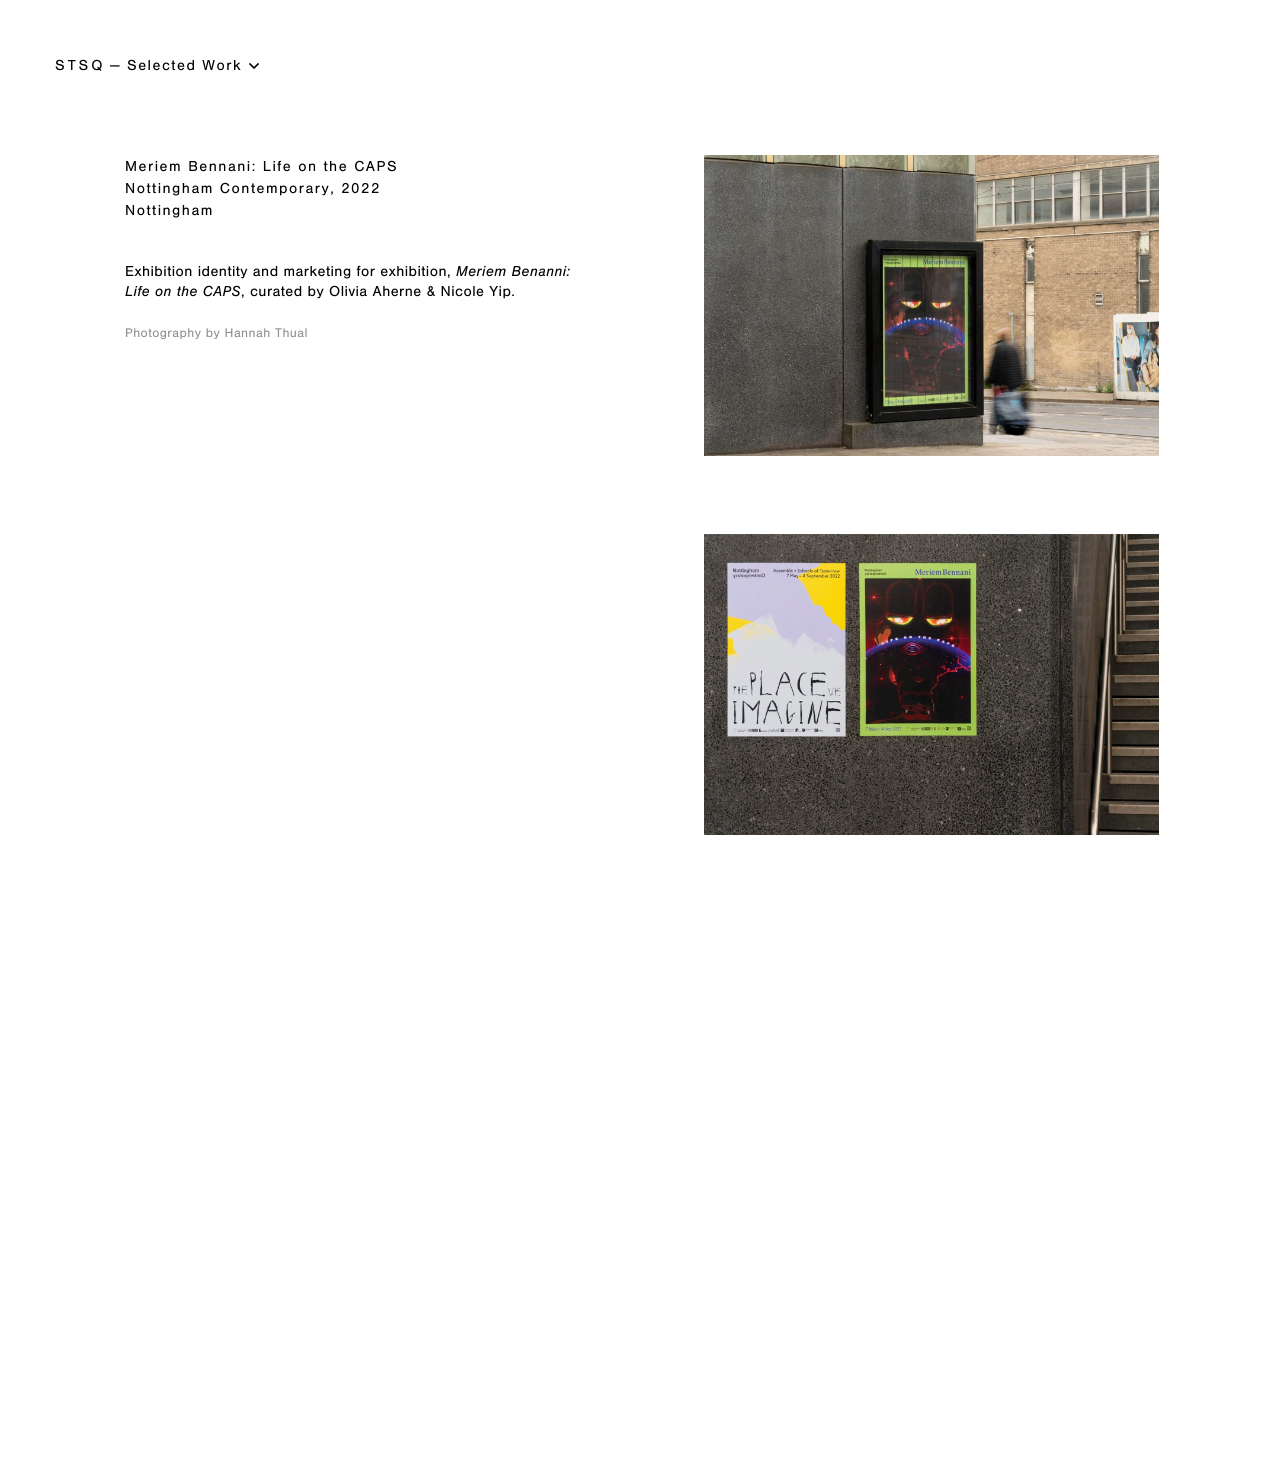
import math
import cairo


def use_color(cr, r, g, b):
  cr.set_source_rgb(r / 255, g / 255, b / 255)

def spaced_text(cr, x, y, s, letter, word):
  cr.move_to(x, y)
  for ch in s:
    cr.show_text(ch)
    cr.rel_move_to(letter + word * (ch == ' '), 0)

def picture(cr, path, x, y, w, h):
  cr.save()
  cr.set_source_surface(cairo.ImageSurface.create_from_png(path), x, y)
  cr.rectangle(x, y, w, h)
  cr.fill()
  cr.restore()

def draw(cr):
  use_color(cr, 255, 255, 255)
  cr.paint()
  picture(cr, "img_01.png", 249, 63, 10, 6)
  picture(cr, "img_02.png", 704, 155, 455, 301)
  picture(cr, "img_03.png", 704, 534, 455, 301)
  cr.select_font_face("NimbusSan")
  cr.set_font_size(15)
  use_color(cr, 0, 0, 0)
  spaced_text(cr, 55, 70, "STSQ", 3, 0)
  spaced_text(cr, 110, 70, "—", 3, 0)
  spaced_text(cr, 127, 70, "Selected Work", 1.5, 0)
  spaced_text(cr, 125, 171, "Meriem Bennani: Life on the CAPS", 1.5, 0)
  spaced_text(cr, 125, 193, "Nottingham Contemporary, 2022", 1.5, 0)
  spaced_text(cr, 125, 215, "Nottingham", 1.5, 0)
  spaced_text(cr, 125, 276, "Exhibition identity and marketing for exhibition,", 0.45, 0)
  cr.select_font_face("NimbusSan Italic", cairo.FONT_SLANT_ITALIC)
  spaced_text(cr, 456, 276, "Meriem Benanni:", 0.45, 0)
  spaced_text(cr, 125, 296, "Life on the CAPS", 0.45, 0)
  cr.select_font_face("NimbusSan")
  spaced_text(cr, 241, 296, ", curated by Olivia Aherne & Nicole Yip.", 0.45, 0)
  cr.set_font_size(13)
  use_color(cr, 143, 143, 143)
  spaced_text(cr, 125, 337, "Photography by Hannah Thual", 0.45, 0)


surface = cairo.ImageSurface(cairo.FORMAT_RGB24, 1284, 1461)
cr = cairo.Context(surface)
options = cairo.FontOptions()
options.set_hint_metrics(cairo.HINT_METRICS_OFF)
options.set_hint_style(cairo.HINT_STYLE_NONE)
cr.set_font_options(options)
cr.set_miter_limit(4)
draw(cr)
surface.write_to_png("out.png")
